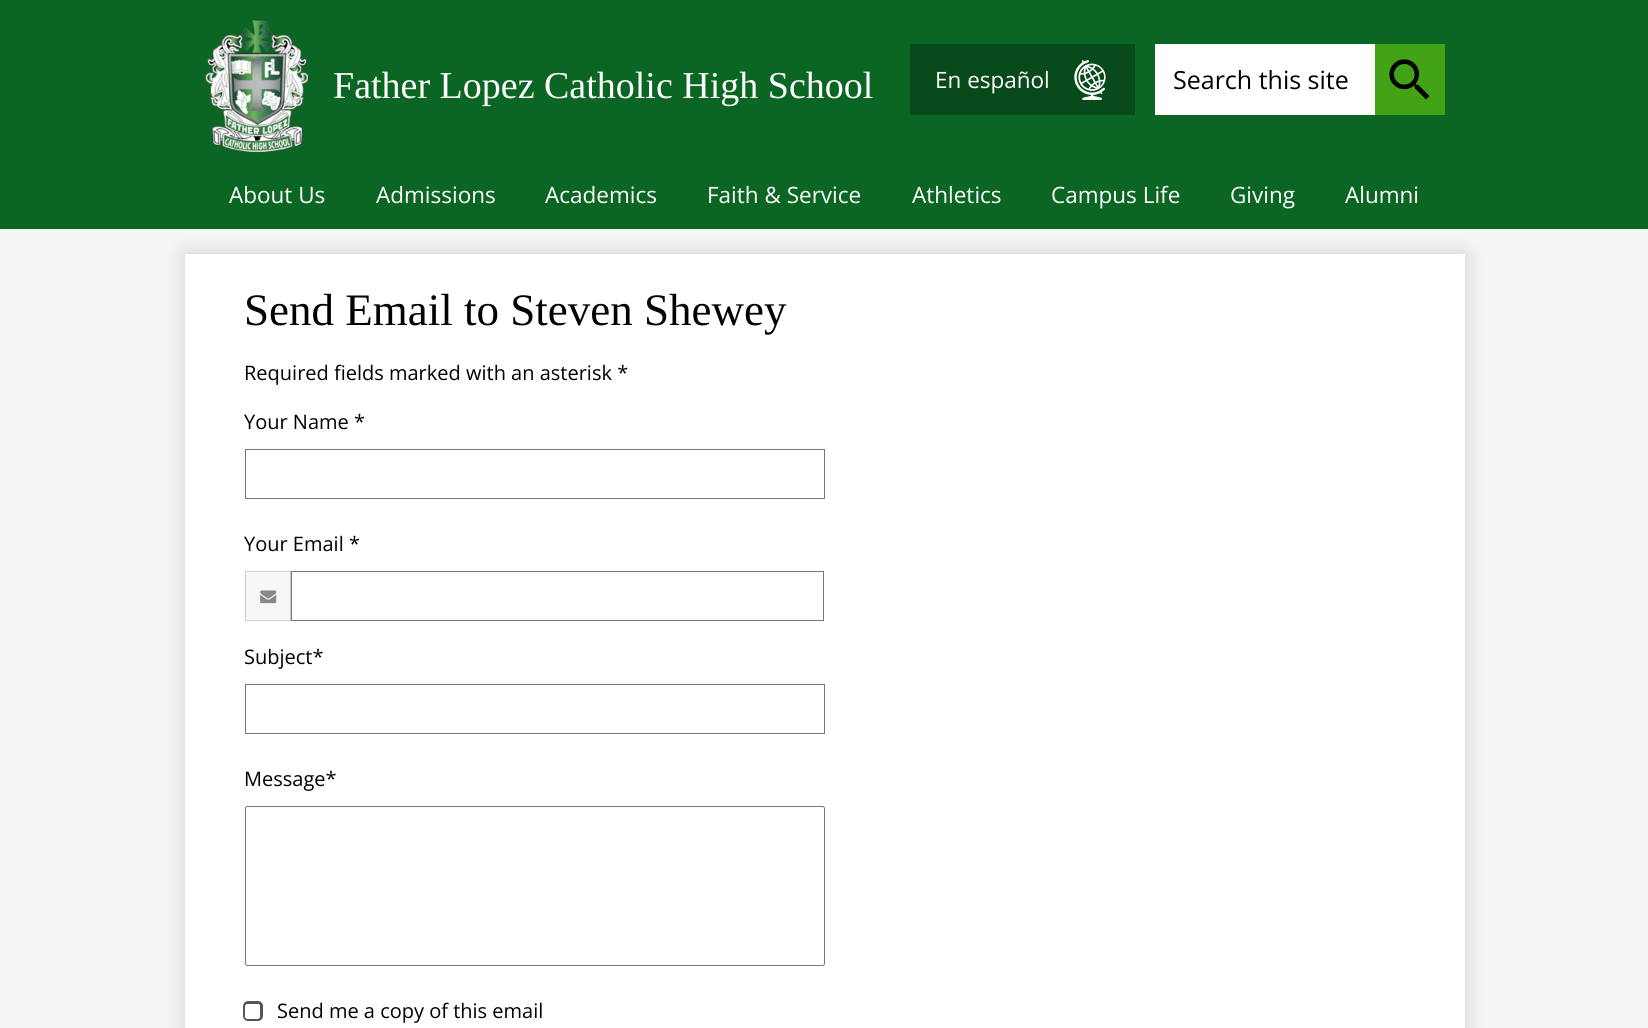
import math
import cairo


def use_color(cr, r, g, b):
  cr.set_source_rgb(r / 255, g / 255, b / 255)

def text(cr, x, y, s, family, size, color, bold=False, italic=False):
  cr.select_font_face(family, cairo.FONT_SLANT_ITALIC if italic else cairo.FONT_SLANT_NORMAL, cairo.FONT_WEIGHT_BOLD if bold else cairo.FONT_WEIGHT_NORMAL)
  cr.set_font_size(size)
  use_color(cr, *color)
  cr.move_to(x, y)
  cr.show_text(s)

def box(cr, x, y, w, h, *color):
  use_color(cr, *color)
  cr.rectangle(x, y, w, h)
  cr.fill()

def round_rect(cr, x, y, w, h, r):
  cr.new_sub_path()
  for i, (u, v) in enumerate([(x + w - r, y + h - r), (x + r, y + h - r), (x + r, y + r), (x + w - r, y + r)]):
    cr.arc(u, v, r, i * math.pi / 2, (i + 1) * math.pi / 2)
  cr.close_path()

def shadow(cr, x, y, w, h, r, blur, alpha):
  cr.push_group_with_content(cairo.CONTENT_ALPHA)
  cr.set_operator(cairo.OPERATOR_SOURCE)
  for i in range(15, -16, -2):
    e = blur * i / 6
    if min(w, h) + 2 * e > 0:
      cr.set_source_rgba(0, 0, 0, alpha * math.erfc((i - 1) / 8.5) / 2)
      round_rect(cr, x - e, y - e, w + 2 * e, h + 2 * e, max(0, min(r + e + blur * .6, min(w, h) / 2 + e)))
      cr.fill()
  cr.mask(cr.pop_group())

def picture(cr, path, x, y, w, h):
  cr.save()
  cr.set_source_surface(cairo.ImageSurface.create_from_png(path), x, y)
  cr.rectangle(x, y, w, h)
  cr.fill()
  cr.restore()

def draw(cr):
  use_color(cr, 245, 245, 245)
  cr.paint()
  use_color(cr, 0, 0, 0)
  shadow(cr, 185, 254, 1280, 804, 0, 10, 0.15)
  box(cr, 0, 0, 1648, 229, 11, 102, 35)
  picture(cr, "img_01.png", 205, 20, 104, 133)
  box(cr, 910, 44, 225, 71, 8, 74, 26)
  picture(cr, "img_02.png", 1074, 60, 32, 40)
  box(cr, 1155, 44, 220, 71, 255, 255, 255)
  box(cr, 1375, 44, 70, 71, 67, 163, 22)
  picture(cr, "img_03.png", 1389, 59, 41, 41)
  box(cr, 185, 254, 1280, 774, 255, 255, 255)
  cr.rectangle(245.5, 449.5, 579, 49)
  use_color(cr, 118, 118, 118)
  cr.set_line_width(1)
  cr.stroke()
  use_color(cr, 246, 247, 248)
  cr.rectangle(245.5, 571.5, 45, 49)
  cr.fill_preserve()
  use_color(cr, 204, 204, 204)
  cr.stroke()
  picture(cr, "img_04.png", 260, 590, 17, 14)
  cr.rectangle(291.5, 571.5, 532, 49)
  use_color(cr, 118, 118, 118)
  cr.stroke()
  cr.rectangle(245.5, 684.5, 579, 49)
  cr.stroke()
  round_rect(cr, 245.5, 806.5, 579, 159, 2)
  cr.stroke()
  round_rect(cr, 244.5, 1002.5, 17, 17, 3.5)
  use_color(cr, 85, 85, 85)
  cr.set_line_width(3)
  cr.stroke()
  use_color(cr, 255, 255, 255)
  round_rect(cr, 245, 1004, 15, 15, 2.5)
  cr.fill()
  text(cr, 333, 98, "Father Lopez Catholic High School", "Tinos", 38, (255, 255, 255))
  text(cr, 935, 88, "En español", "Open Sans", 22.5, (255, 255, 255))
  text(cr, 1173, 89, "Search this site", "Open Sans", 25, (0, 0, 0))
  text(cr, 229, 203, "About Us", "Open Sans", 22.5, (255, 255, 255))
  text(cr, 376, 203, "Admissions", "Open Sans", 22.5, (255, 255, 255))
  text(cr, 545, 203, "Academics", "Open Sans", 22.5, (255, 255, 255))
  text(cr, 707, 203, "Faith & Service", "Open Sans", 22.5, (255, 255, 255))
  text(cr, 912, 203, "Athletics", "Open Sans", 22.5, (255, 255, 255))
  text(cr, 1051, 203, "Campus Life", "Open Sans", 22.5, (255, 255, 255))
  text(cr, 1230, 203, "Giving", "Open Sans", 22.5, (255, 255, 255))
  text(cr, 1345, 203, "Alumni", "Open Sans", 22.5, (255, 255, 255))
  text(cr, 244, 325, "Send Email to Steven Shewey", "Tinos", 45, (0, 0, 0))
  text(cr, 244, 380, "Required fields marked with an asterisk *", "Open Sans", 20, (0, 0, 0))
  text(cr, 244, 429, "Your Name *", "Open Sans", 20, (0, 0, 0))
  text(cr, 244, 551, "Your Email *", "Open Sans", 20, (0, 0, 0))
  text(cr, 244, 664, "Subject*", "Open Sans", 20, (0, 0, 0))
  text(cr, 244, 786, "Message*", "Open Sans", 20, (0, 0, 0))
  text(cr, 277, 1018, "Send me a copy of this email", "Open Sans", 20, (0, 0, 0))


surface = cairo.ImageSurface(cairo.FORMAT_RGB24, 1648, 1028)
cr = cairo.Context(surface)
options = cairo.FontOptions()
options.set_hint_metrics(cairo.HINT_METRICS_OFF)
options.set_hint_style(cairo.HINT_STYLE_NONE)
cr.set_font_options(options)
cr.set_miter_limit(4)
draw(cr)
surface.write_to_png("out.png")
